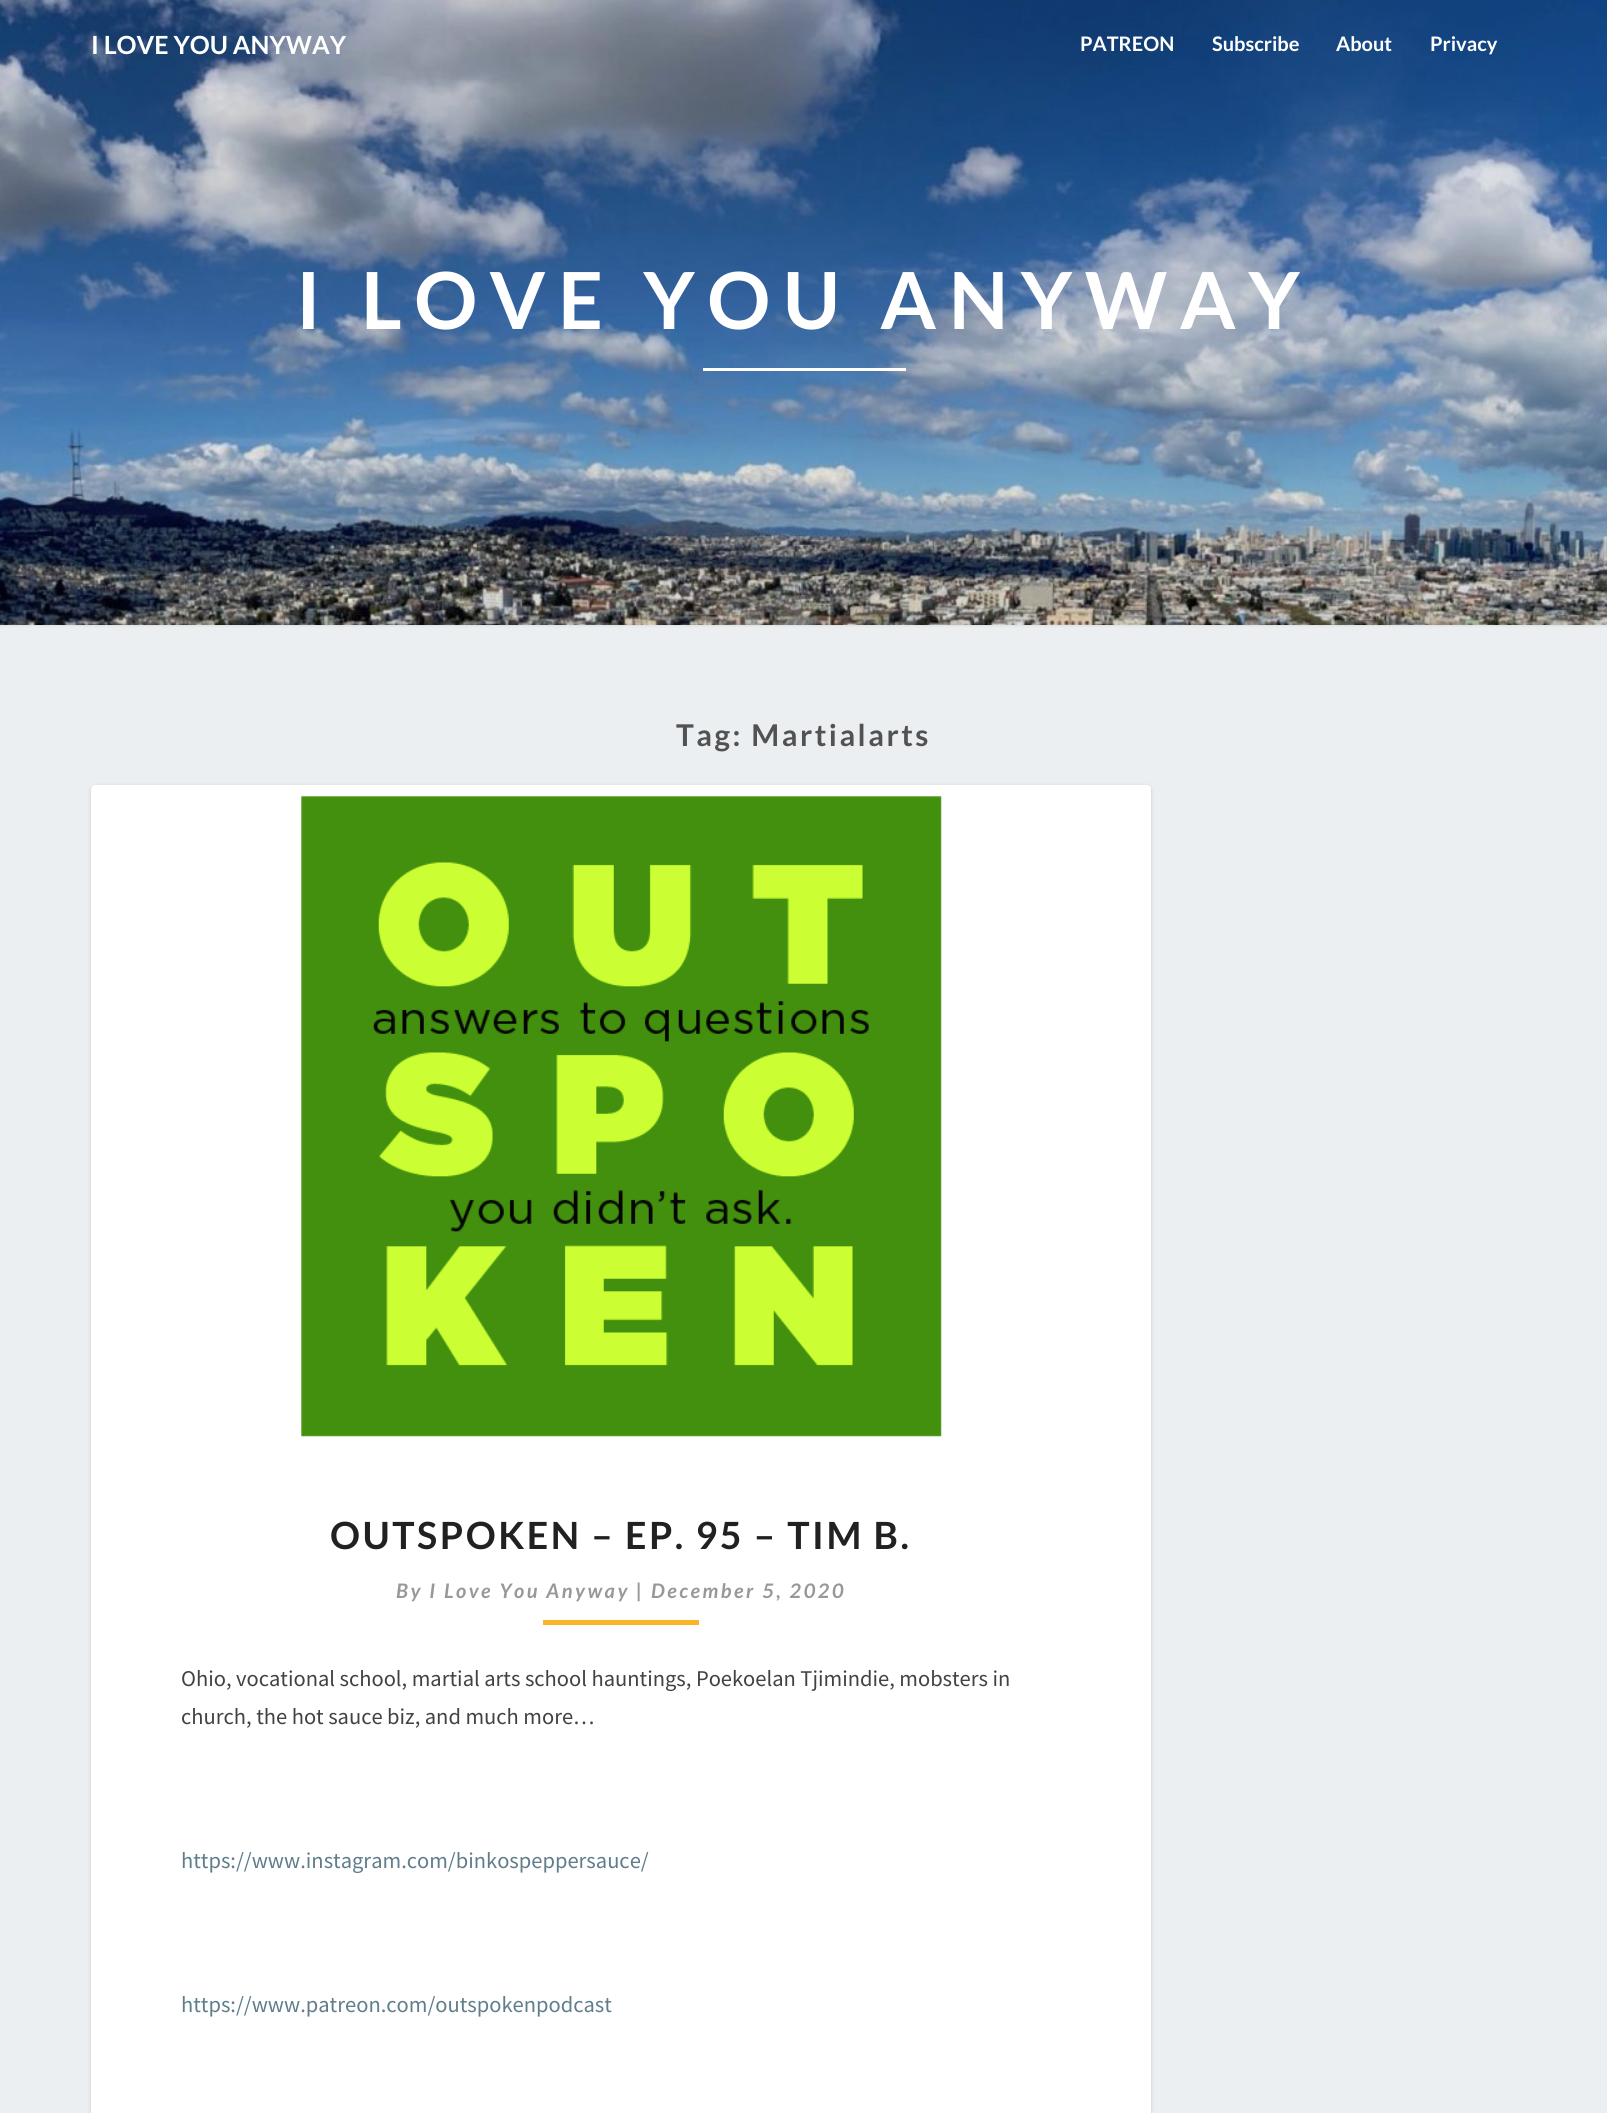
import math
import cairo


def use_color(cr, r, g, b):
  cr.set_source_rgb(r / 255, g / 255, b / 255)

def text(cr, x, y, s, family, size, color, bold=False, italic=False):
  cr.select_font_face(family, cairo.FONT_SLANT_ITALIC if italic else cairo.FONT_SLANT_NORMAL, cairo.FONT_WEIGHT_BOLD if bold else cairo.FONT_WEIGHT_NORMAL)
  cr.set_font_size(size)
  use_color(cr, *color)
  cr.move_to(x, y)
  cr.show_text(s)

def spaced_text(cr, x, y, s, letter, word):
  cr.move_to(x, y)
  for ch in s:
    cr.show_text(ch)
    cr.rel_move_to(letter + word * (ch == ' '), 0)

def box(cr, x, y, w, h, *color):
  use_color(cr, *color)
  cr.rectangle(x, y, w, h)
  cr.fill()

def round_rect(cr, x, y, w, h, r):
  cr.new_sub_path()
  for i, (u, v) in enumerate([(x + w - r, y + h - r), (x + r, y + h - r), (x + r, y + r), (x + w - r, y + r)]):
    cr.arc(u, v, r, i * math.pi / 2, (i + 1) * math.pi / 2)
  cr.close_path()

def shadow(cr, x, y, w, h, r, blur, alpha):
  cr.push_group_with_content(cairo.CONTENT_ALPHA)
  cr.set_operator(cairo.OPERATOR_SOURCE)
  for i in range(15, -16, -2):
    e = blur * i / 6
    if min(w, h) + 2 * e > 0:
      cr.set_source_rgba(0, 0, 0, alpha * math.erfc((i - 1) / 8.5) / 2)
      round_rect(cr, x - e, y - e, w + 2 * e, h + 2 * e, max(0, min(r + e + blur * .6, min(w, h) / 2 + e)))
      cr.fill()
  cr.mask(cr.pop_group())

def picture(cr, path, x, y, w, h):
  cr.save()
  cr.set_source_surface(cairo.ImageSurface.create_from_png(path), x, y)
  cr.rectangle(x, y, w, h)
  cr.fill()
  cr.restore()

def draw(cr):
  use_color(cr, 236, 239, 241)
  cr.paint()
  use_color(cr, 182, 182, 182)
  shadow(cr, -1, -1, 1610, 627, 0, 1, 0.3)
  picture(cr, "img_01.png", 0, 0, 1607, 625)
  box(cr, 703, 368, 203, 3, 255, 255, 255)
  use_color(cr, 0, 0, 0)
  shadow(cr, 91, 786, 1060, 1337, 4, 2, 0.15)
  use_color(cr, 255, 255, 255)
  round_rect(cr, 91, 785, 1060, 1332, 4)
  cr.fill()
  picture(cr, "img_02.png", 301, 796, 641, 641)
  box(cr, 543, 1620, 156, 5, 250, 181, 38)
  text(cr, 91, 54, "I LOVE YOU ANYWAY", "Lato", 25, (255, 255, 255), bold=True)
  text(cr, 1080, 51, "PATREON", "Lato", 20, (255, 255, 255), bold=True)
  text(cr, 1212, 51, "Subscribe", "Lato", 20, (255, 255, 255), bold=True)
  text(cr, 1336, 51, "About", "Lato", 20, (255, 255, 255), bold=True)
  text(cr, 1430, 51, "Privacy", "Lato", 20, (255, 255, 255), bold=True)
  cr.set_font_size(78.75)
  spaced_text(cr, 296, 329, "I LOVE YOU ANYWAY", 12.5, 0)
  cr.set_font_size(30)
  use_color(cr, 82, 82, 82)
  spaced_text(cr, 676, 746, "Tag: Martialarts", 2.5, 0)
  cr.set_font_size(37.5)
  use_color(cr, 33, 33, 33)
  spaced_text(cr, 330, 1549, "OUTSPOKEN – EP. 95 – TIM B.", 2.5, 0)
  cr.select_font_face("Lato", cairo.FONT_SLANT_ITALIC, cairo.FONT_WEIGHT_BOLD)
  cr.set_font_size(20)
  use_color(cr, 152, 152, 152)
  spaced_text(cr, 396, 1598, "By I Love You Anyway | December 5, 2020", 2.5, 0)
  text(cr, 181, 1686, "Ohio, vocational school, martial arts school hauntings, Poekoelan Tjimindie, mobsters in", "Source Sans Pro", 22.5, (66, 66, 66))
  text(cr, 181, 1724, "church, the hot sauce biz, and much more…", "Source Sans Pro", 22.5, (66, 66, 66))
  text(cr, 181, 1868, "https://www.instagram.com/binkospeppersauce/", "Source Sans Pro", 22.5, (96, 125, 139))
  text(cr, 181, 2012, "https://www.patreon.com/outspokenpodcast", "Source Sans Pro", 22.5, (96, 125, 139))


surface = cairo.ImageSurface(cairo.FORMAT_RGB24, 1607, 2113)
cr = cairo.Context(surface)
options = cairo.FontOptions()
options.set_hint_metrics(cairo.HINT_METRICS_OFF)
options.set_hint_style(cairo.HINT_STYLE_NONE)
cr.set_font_options(options)
cr.set_miter_limit(4)
draw(cr)
surface.write_to_png("out.png")
